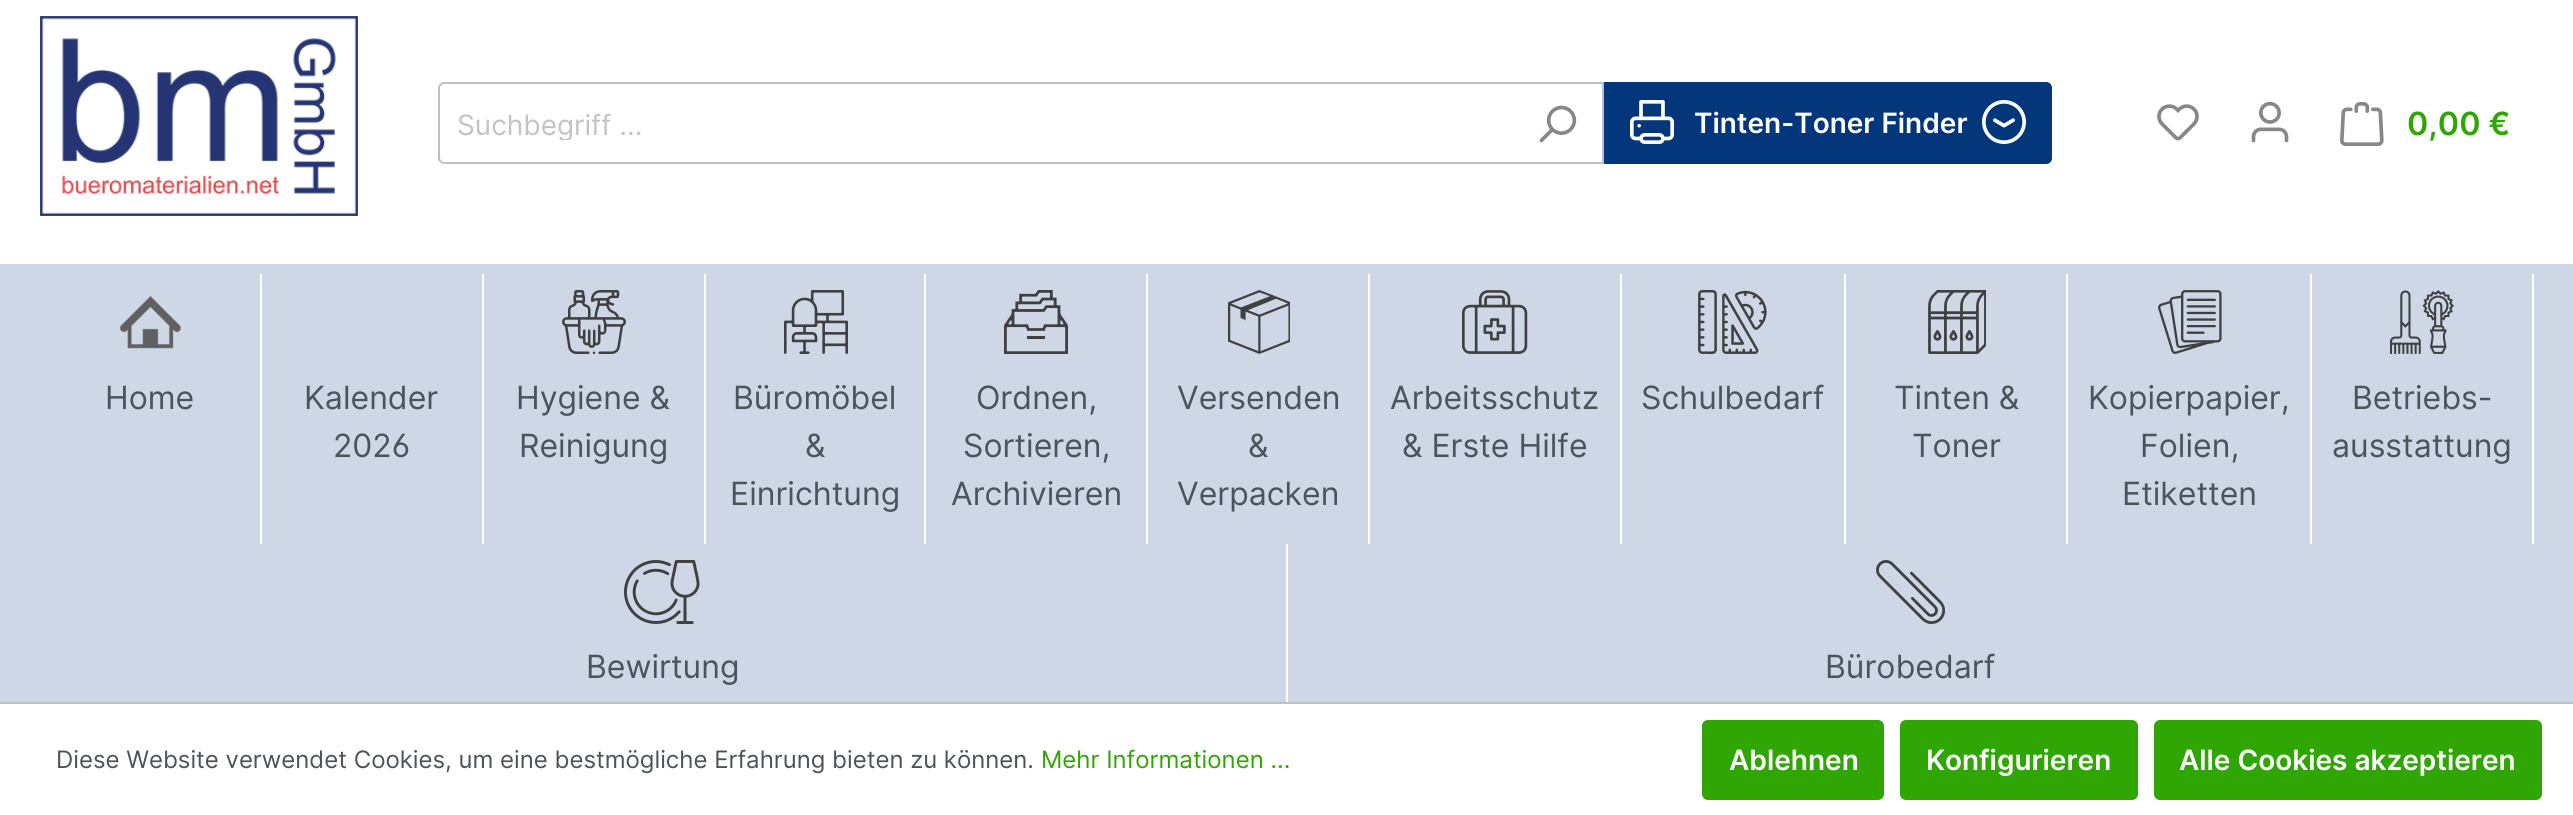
import math
import cairo


def use_color(cr, r, g, b):
  cr.set_source_rgb(r / 255, g / 255, b / 255)

def text(cr, x, y, s, family, size, color, bold=False, italic=False):
  cr.select_font_face(family, cairo.FONT_SLANT_ITALIC if italic else cairo.FONT_SLANT_NORMAL, cairo.FONT_WEIGHT_BOLD if bold else cairo.FONT_WEIGHT_NORMAL)
  cr.set_font_size(size)
  use_color(cr, *color)
  cr.move_to(x, y)
  cr.show_text(s)

def box(cr, x, y, w, h, *color):
  use_color(cr, *color)
  cr.rectangle(x, y, w, h)
  cr.fill()

def round_rect(cr, x, y, w, h, r):
  cr.new_sub_path()
  for i, (u, v) in enumerate([(x + w - r, y + h - r), (x + r, y + h - r), (x + r, y + r), (x + w - r, y + r)]):
    cr.arc(u, v, r, i * math.pi / 2, (i + 1) * math.pi / 2)
  cr.close_path()

def picture(cr, path, x, y, w, h):
  cr.save()
  cr.set_source_surface(cairo.ImageSurface.create_from_png(path), x, y)
  cr.rectangle(x, y, w, h)
  cr.fill()
  cr.restore()

def draw(cr):
  use_color(cr, 255, 255, 255)
  cr.paint()
  picture(cr, "img_01.png", 40, 16, 318, 200)
  use_color(cr, 188, 193, 199)
  cr.set_fill_rule(cairo.FILL_RULE_EVEN_ODD)
  cr.new_path()
  cr.move_to(444, 82)
  cr.line_to(1512, 82)
  cr.line_to(1512, 164)
  cr.line_to(444, 164)
  cr.curve_to(441, 164, 438, 161, 438, 158)
  cr.line_to(438, 88)
  cr.curve_to(438, 85, 441, 82, 444, 82)
  cr.close_path()
  cr.move_to(444, 84)
  cr.line_to(1512, 84)
  cr.line_to(1512, 162)
  cr.line_to(444, 162)
  cr.curve_to(442, 162, 440, 160, 440, 158)
  cr.line_to(440, 88)
  cr.curve_to(440, 86, 442, 84, 444, 84)
  cr.close_path()
  cr.fill()
  box(cr, 1510, 82, 94, 2, 188, 193, 199)
  box(cr, 1602, 82, 2, 82, 188, 193, 199)
  box(cr, 1510, 162, 94, 2, 188, 193, 199)
  picture(cr, "img_02.png", 1539, 105, 38, 38)
  use_color(cr, 3, 54, 123)
  cr.new_path()
  cr.move_to(1605, 83)
  cr.line_to(2046, 83)
  cr.curve_to(2049, 83, 2051, 85, 2051, 88)
  cr.line_to(2051, 158)
  cr.curve_to(2051, 161, 2049, 163, 2046, 163)
  cr.line_to(1605, 163)
  cr.close_path()
  cr.fill_preserve()
  cr.stroke()
  picture(cr, "img_03.png", 1630, 100, 44, 44)
  picture(cr, "img_04.png", 1982, 100, 44, 44)
  picture(cr, "img_05.png", 2157, 104, 42, 37)
  picture(cr, "img_06.png", 2251, 101, 38, 42)
  picture(cr, "img_07.png", 2340, 102, 44, 44)
  box(cr, 0, 264, 2573, 438, 205, 215, 229)
  box(cr, 260, 274, 2, 270, 255, 255, 255)
  picture(cr, "img_08.png", 119, 295, 62, 54)
  box(cr, 482, 274, 2, 270, 255, 255, 255)
  box(cr, 704, 274, 2, 270, 255, 255, 255)
  picture(cr, "img_09.png", 562, 290, 64, 64)
  box(cr, 924, 274, 2, 270, 255, 255, 255)
  picture(cr, "img_10.png", 784, 290, 64, 64)
  box(cr, 1146, 274, 2, 270, 255, 255, 255)
  picture(cr, "img_11.png", 1004, 290, 64, 64)
  box(cr, 1368, 274, 2, 270, 255, 255, 255)
  picture(cr, "img_12.png", 1228, 290, 62, 64)
  box(cr, 1620, 274, 2, 270, 255, 255, 255)
  picture(cr, "img_13.png", 1462, 290, 66, 64)
  box(cr, 1844, 274, 2, 270, 255, 255, 255)
  picture(cr, "img_14.png", 1698, 290, 69, 64)
  box(cr, 2066, 274, 2, 270, 255, 255, 255)
  picture(cr, "img_15.png", 1928, 290, 58, 64)
  box(cr, 2310, 274, 2, 270, 255, 255, 255)
  picture(cr, "img_16.png", 2158, 290, 64, 64)
  box(cr, 2532, 274, 2, 270, 255, 255, 255)
  picture(cr, "img_17.png", 2390, 290, 64, 64)
  box(cr, 1286, 544, 2, 158, 255, 255, 255)
  picture(cr, "img_18.png", 624, 560, 76, 64)
  picture(cr, "img_19.png", 1876, 560, 70, 64)
  box(cr, 0, 702, 2573, 2, 188, 193, 199)
  use_color(cr, 48, 166, 5)
  round_rect(cr, 1703, 721, 180, 78, 5)
  cr.fill_preserve()
  cr.stroke()
  round_rect(cr, 1901, 721, 236, 78, 5)
  cr.fill_preserve()
  cr.stroke()
  round_rect(cr, 2155, 721, 386, 78, 5)
  cr.fill_preserve()
  cr.stroke()
  cr.save()
  cr.set_fill_rule(cairo.FILL_RULE_WINDING)
  cr.rectangle(458, 106, 1036, 34)
  cr.clip()
  text(cr, 457, 135, "Suchbegriff ...", "Inter", 28, (195, 195, 195))
  cr.restore()
  text(cr, 1694, 133, "Tinten-Toner Finder", "Inter SemiBold", 28, (255, 255, 255))
  text(cr, 2407, 135, "0,00 €", "Inter SemiBold", 32, (48, 166, 5))
  text(cr, 105, 409, "Home", "Inter", 32, (74, 84, 91))
  text(cr, 304, 409, "Kalender", "Inter", 32, (74, 84, 91))
  text(cr, 333, 457, "2026", "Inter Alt", 32, (74, 84, 91))
  text(cr, 516, 409, "Hygiene &", "Inter", 32, (74, 84, 91))
  text(cr, 519, 457, "Reinigung", "Inter", 32, (74, 84, 91))
  text(cr, 733, 409, "Büromöbel", "Inter", 32, (74, 84, 91))
  text(cr, 805, 457, "&", "Inter", 32, (74, 84, 91))
  text(cr, 730, 505, "Einrichtung", "Inter", 32, (74, 84, 91))
  text(cr, 976, 409, "Ordnen,", "Inter", 32, (74, 84, 91))
  text(cr, 963, 457, "Sortieren,", "Inter", 32, (74, 84, 91))
  text(cr, 951, 505, "Archivieren", "Inter", 32, (74, 84, 91))
  text(cr, 1177, 409, "Versenden", "Inter", 32, (74, 84, 91))
  text(cr, 1248, 457, "&", "Inter", 32, (74, 84, 91))
  text(cr, 1177, 505, "Verpacken", "Inter", 32, (74, 84, 91))
  text(cr, 1390, 409, "Arbeitsschutz", "Inter", 32, (74, 84, 91))
  text(cr, 1402, 457, "& Erste Hilfe", "Inter", 32, (74, 84, 91))
  text(cr, 1641, 409, "Schulbedarf", "Inter", 32, (74, 84, 91))
  text(cr, 1894, 409, "Tinten &", "Inter", 32, (74, 84, 91))
  text(cr, 1912, 457, "Toner", "Inter", 32, (74, 84, 91))
  text(cr, 2088, 409, "Kopierpapier,", "Inter", 32, (74, 84, 91))
  text(cr, 2140, 457, "Folien,", "Inter", 32, (74, 84, 91))
  text(cr, 2122, 505, "Etiketten", "Inter", 32, (74, 84, 91))
  text(cr, 2352, 409, "Betriebs-", "Inter", 32, (74, 84, 91))
  text(cr, 2332, 457, "ausstattung", "Inter", 32, (74, 84, 91))
  text(cr, 586, 678, "Bewirtung", "Inter", 32, (74, 84, 91))
  text(cr, 1825, 678, "Bürobedarf", "Inter", 32, (74, 84, 91))
  text(cr, 56, 768, "Diese Website verwendet Cookies, um eine bestmögliche Erfahrung bieten zu können.", "Inter", 24, (74, 84, 91))
  text(cr, 1041, 768, "Mehr Informationen ...", "Inter", 24, (48, 166, 5))
  text(cr, 1729, 770, "Ablehnen", "Inter SemiBold", 28, (255, 255, 255))
  text(cr, 1926, 770, "Konfigurieren", "Inter SemiBold", 28, (255, 255, 255))
  text(cr, 2179, 770, "Alle Cookies akzeptieren", "Inter SemiBold", 28, (255, 255, 255))


surface = cairo.ImageSurface(cairo.FORMAT_RGB24, 2573, 815)
cr = cairo.Context(surface)
options = cairo.FontOptions()
options.set_hint_metrics(cairo.HINT_METRICS_OFF)
options.set_hint_style(cairo.HINT_STYLE_NONE)
cr.set_font_options(options)
cr.set_miter_limit(4)
draw(cr)
surface.write_to_png("out.png")
